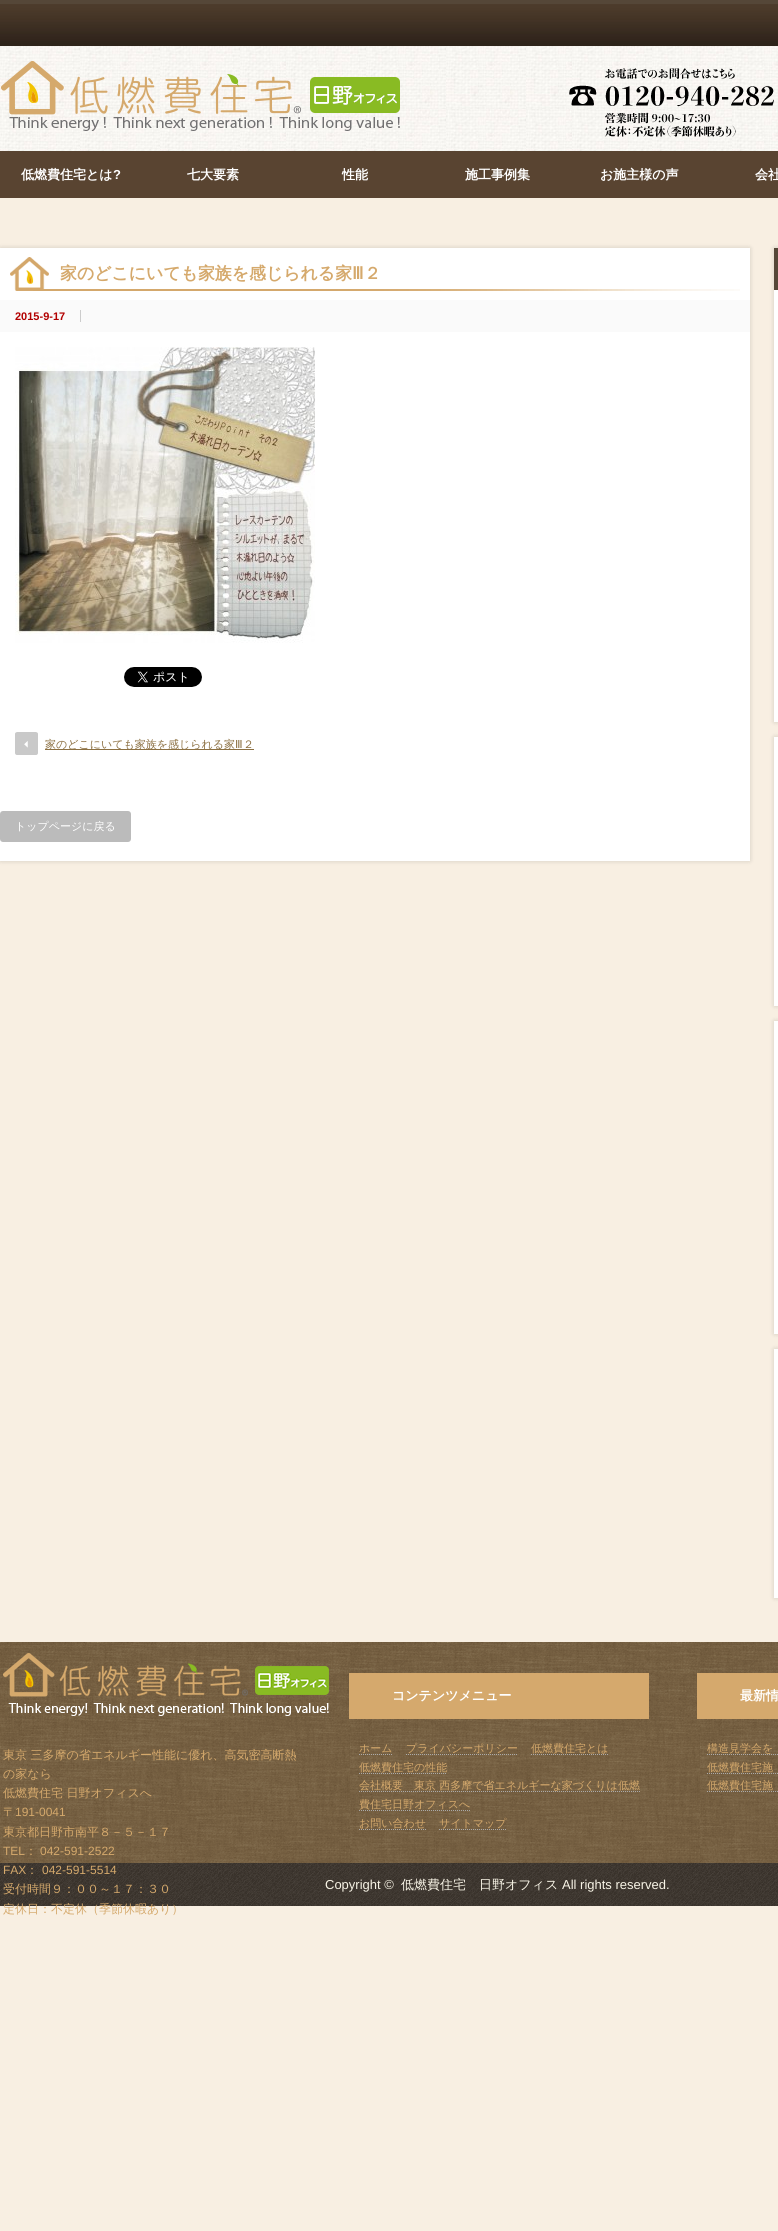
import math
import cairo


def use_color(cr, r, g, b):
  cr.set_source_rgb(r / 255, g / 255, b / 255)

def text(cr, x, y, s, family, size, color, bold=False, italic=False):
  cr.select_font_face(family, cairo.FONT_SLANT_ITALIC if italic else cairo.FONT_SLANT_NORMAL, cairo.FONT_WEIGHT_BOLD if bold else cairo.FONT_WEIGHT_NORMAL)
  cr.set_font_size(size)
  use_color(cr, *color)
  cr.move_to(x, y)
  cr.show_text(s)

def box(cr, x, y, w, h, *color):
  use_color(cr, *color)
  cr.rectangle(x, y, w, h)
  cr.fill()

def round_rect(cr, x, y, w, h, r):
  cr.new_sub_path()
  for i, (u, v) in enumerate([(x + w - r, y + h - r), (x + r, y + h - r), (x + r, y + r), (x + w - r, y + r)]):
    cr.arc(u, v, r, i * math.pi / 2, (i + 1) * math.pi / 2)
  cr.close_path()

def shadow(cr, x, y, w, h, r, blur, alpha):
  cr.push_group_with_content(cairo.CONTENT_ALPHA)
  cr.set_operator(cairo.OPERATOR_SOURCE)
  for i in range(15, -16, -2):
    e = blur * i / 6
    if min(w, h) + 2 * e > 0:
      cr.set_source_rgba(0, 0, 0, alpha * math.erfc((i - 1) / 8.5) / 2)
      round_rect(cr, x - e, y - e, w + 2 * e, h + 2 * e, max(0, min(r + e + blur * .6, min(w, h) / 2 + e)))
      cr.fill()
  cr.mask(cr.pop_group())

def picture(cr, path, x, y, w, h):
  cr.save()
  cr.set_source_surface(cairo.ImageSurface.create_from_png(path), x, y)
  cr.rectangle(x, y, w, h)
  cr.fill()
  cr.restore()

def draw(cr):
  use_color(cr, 248, 239, 226)
  cr.paint()
  picture(cr, "img_01.png", 0, 4, 778, 147)
  box(cr, 0, 0, 778, 4, 85, 71, 56)
  picture(cr, "img_02.png", 1, 61, 399, 70)
  picture(cr, "img_03.png", 569, 68, 205, 69)
  box(cr, 0, 151, 778, 47, 89, 68, 49)
  use_color(cr, 0, 0, 0)
  shadow(cr, 0, 248, 750, 613, 0, 2.5, 0.15)
  box(cr, 0, 248, 750, 613, 255, 255, 255)
  picture(cr, "img_04.png", 10, 257, 730, 34)
  box(cr, 0, 300, 750, 32, 250, 250, 250)
  box(cr, 80, 310, 1, 12, 204, 204, 204)
  picture(cr, "img_05.png", 15, 347, 300, 296)
  picture(cr, "img_06.png", 124, 667, 78, 20)
  picture(cr, "img_07.png", 15, 732, 23, 23)
  box(cr, 45, 749, 209, 1, 140, 112, 66)
  use_color(cr, 187, 187, 187)
  round_rect(cr, 0, 811, 131, 31, 3)
  cr.fill()
  use_color(cr, 0, 0, 0)
  shadow(cr, 774, 248, 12, 474, 0, 2.5, 0.15)
  box(cr, 774, 290, 4, 432, 255, 255, 255)
  box(cr, 774, 248, 4, 42, 85, 71, 56)
  use_color(cr, 0, 0, 0)
  shadow(cr, 774, 737, 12, 269, 0, 2.5, 0.15)
  box(cr, 774, 737, 4, 269, 255, 255, 255)
  use_color(cr, 0, 0, 0)
  shadow(cr, 774, 1021, 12, 313, 0, 2.5, 0.15)
  box(cr, 774, 1021, 4, 313, 255, 255, 255)
  use_color(cr, 0, 0, 0)
  shadow(cr, 774, 1349, 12, 249, 0, 2.5, 0.15)
  box(cr, 774, 1349, 4, 249, 255, 255, 255)
  picture(cr, "img_08.png", 0, 1642, 778, 221)
  picture(cr, "img_09.png", 3, 1653, 326, 63)
  box(cr, 349, 1673, 300, 46, 213, 169, 109)
  cr.new_path()
  cr.move_to(359, 1754.5)
  cr.line_to(393, 1754.5)
  use_color(cr, 170, 170, 170)
  cr.set_line_width(1)
  cr.set_dash([1, 1])
  cr.stroke()
  cr.new_path()
  cr.move_to(406, 1754.5)
  cr.line_to(518, 1754.5)
  cr.stroke()
  cr.new_path()
  cr.move_to(531, 1754.5)
  cr.line_to(608, 1754.5)
  cr.stroke()
  cr.new_path()
  cr.move_to(359, 1773.5)
  cr.line_to(447, 1773.5)
  cr.stroke()
  cr.new_path()
  cr.move_to(359, 1791.5)
  cr.line_to(640, 1791.5)
  cr.stroke()
  cr.new_path()
  cr.move_to(359, 1810.5)
  cr.line_to(470, 1810.5)
  cr.stroke()
  cr.new_path()
  cr.move_to(359, 1829.5)
  cr.line_to(426, 1829.5)
  cr.stroke()
  cr.new_path()
  cr.move_to(439, 1829.5)
  cr.line_to(507, 1829.5)
  cr.stroke()
  box(cr, 697, 1673, 81, 46, 213, 169, 109)
  cr.new_path()
  cr.move_to(707, 1754.5)
  cr.line_to(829, 1754.5)
  use_color(cr, 170, 170, 170)
  cr.stroke()
  cr.new_path()
  cr.move_to(707, 1773.5)
  cr.line_to(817, 1773.5)
  cr.stroke()
  cr.new_path()
  cr.move_to(707, 1791.5)
  cr.line_to(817, 1791.5)
  cr.stroke()
  picture(cr, "img_10.png", 0, 1863, 778, 43)
  text(cr, 21, 179, "低燃費住宅とは", "WenQuanYi Zen Hei", 13, (255, 255, 255), bold=True)
  text(cr, 113, 179, "?", "Liberation Sans", 13, (255, 255, 255), bold=True)
  text(cr, 187, 179, "七大要素", "WenQuanYi Zen Hei", 13, (255, 255, 255), bold=True)
  text(cr, 342, 179, "性能", "WenQuanYi Zen Hei", 13, (255, 255, 255), bold=True)
  text(cr, 465, 179, "施工事例集", "WenQuanYi Zen Hei", 13, (255, 255, 255), bold=True)
  text(cr, 600, 179, "お施主様の声", "WenQuanYi Zen Hei", 13, (255, 255, 255), bold=True)
  text(cr, 755, 179, "会社", "WenQuanYi Zen Hei", 13, (255, 255, 255), bold=True)
  text(cr, 60, 279, "家のどこにいても家族を感じられる家", "WenQuanYi Zen Hei", 16.9, (213, 169, 108), bold=True)
  text(cr, 352, 279, "Ⅲ", "DejaVu Sans", 16.9, (213, 169, 108), bold=True)
  text(cr, 364, 279, "２", "WenQuanYi Zen Hei", 16.9, (213, 169, 108), bold=True)
  text(cr, 15, 320, "2015-9-17", "Liberation Sans", 11, (178, 0, 0), bold=True)
  text(cr, 45, 748, "家のどこにいても家族を感じられる家", "WenQuanYi Zen Hei Medium", 11, (140, 112, 66))
  text(cr, 235, 748, "Ⅲ", "DejaVu Sans", 11, (140, 112, 66))
  text(cr, 243, 748, "２", "WenQuanYi Zen Hei Medium", 11, (140, 112, 66))
  text(cr, 15, 830, "トップページに戻る", "WenQuanYi Zen Hei Medium", 11, (255, 255, 255))
  text(cr, 3, 1759, "東京 三多摩の省エネルギー性能に優れ、高気密高断熱", "WenQuanYi Zen Hei Medium", 12, (213, 169, 108))
  text(cr, 3, 1778, "の家なら", "WenQuanYi Zen Hei Medium", 12, (213, 169, 108))
  text(cr, 3, 1797, "低燃費住宅 日野オフィスへ", "WenQuanYi Zen Hei Medium", 12, (213, 169, 108))
  text(cr, 3, 1816, "〒", "WenQuanYi Zen Hei Medium", 12, (213, 169, 108))
  text(cr, 15, 1816, "191-0041", "Liberation Sans", 12, (213, 169, 108))
  text(cr, 3, 1836, "東京都日野市南平８－５－１７", "WenQuanYi Zen Hei Medium", 12, (213, 169, 108))
  text(cr, 3, 1855, "TEL", "Liberation Sans", 12, (213, 169, 108))
  text(cr, 25, 1855, "：", "WenQuanYi Zen Hei Medium", 12, (213, 169, 108))
  text(cr, 40, 1855, "042-591-2522", "Liberation Sans", 12, (213, 169, 108))
  text(cr, 3, 1874, "FAX", "Liberation Sans", 12, (213, 169, 108))
  text(cr, 26, 1874, "：", "WenQuanYi Zen Hei Medium", 12, (213, 169, 108))
  text(cr, 42, 1874, "042-591-5514", "Liberation Sans", 12, (213, 169, 108))
  text(cr, 3, 1893, "受付時間９：００～１７：３０", "WenQuanYi Zen Hei Medium", 12, (213, 169, 108))
  text(cr, 3, 1913, "定休日：不定休（季節休暇あり）", "WenQuanYi Zen Hei Medium", 12, (213, 169, 108))
  text(cr, 392, 1700, "コンテンツメニュー", "WenQuanYi Zen Hei", 13, (255, 255, 255), bold=True)
  text(cr, 359, 1752, "ホーム", "WenQuanYi Zen Hei Medium", 11, (213, 169, 108))
  text(cr, 406, 1752, "プライバシーポリシー", "WenQuanYi Zen Hei Medium", 11, (213, 169, 108))
  text(cr, 531, 1752, "低燃費住宅とは", "WenQuanYi Zen Hei Medium", 11, (213, 169, 108))
  text(cr, 359, 1771, "低燃費住宅の性能", "WenQuanYi Zen Hei Medium", 11, (213, 169, 108))
  text(cr, 359, 1789, "会社概要　東京 西多摩で省エネルギーな家づくりは低燃", "WenQuanYi Zen Hei Medium", 11, (213, 169, 108))
  text(cr, 359, 1808, "費住宅日野オフィスへ", "WenQuanYi Zen Hei Medium", 11, (213, 169, 108))
  text(cr, 359, 1827, "お問い合わせ", "WenQuanYi Zen Hei Medium", 11, (213, 169, 108))
  text(cr, 439, 1827, "サイトマップ", "WenQuanYi Zen Hei Medium", 11, (213, 169, 108))
  text(cr, 740, 1700, "最新情", "WenQuanYi Zen Hei", 13, (255, 255, 255), bold=True)
  text(cr, 707, 1752, "構造見学会を", "WenQuanYi Zen Hei Medium", 11, (213, 169, 108))
  text(cr, 707, 1771, "低燃費住宅施", "WenQuanYi Zen Hei Medium", 11, (213, 169, 108))
  text(cr, 707, 1789, "低燃費住宅施", "WenQuanYi Zen Hei Medium", 11, (213, 169, 108))
  text(cr, 325, 1889, "Copyright ©", "Liberation Sans", 13, (248, 244, 230))
  text(cr, 401, 1889, "低燃費住宅　日野オフィス", "WenQuanYi Zen Hei Medium", 13, (248, 244, 230))
  text(cr, 562, 1889, "All rights reserved.", "Liberation Sans", 13, (248, 244, 230))


surface = cairo.ImageSurface(cairo.FORMAT_RGB24, 778, 2231)
cr = cairo.Context(surface)
options = cairo.FontOptions()
options.set_hint_metrics(cairo.HINT_METRICS_OFF)
options.set_hint_style(cairo.HINT_STYLE_NONE)
cr.set_font_options(options)
cr.set_miter_limit(4)
draw(cr)
surface.write_to_png("out.png")
